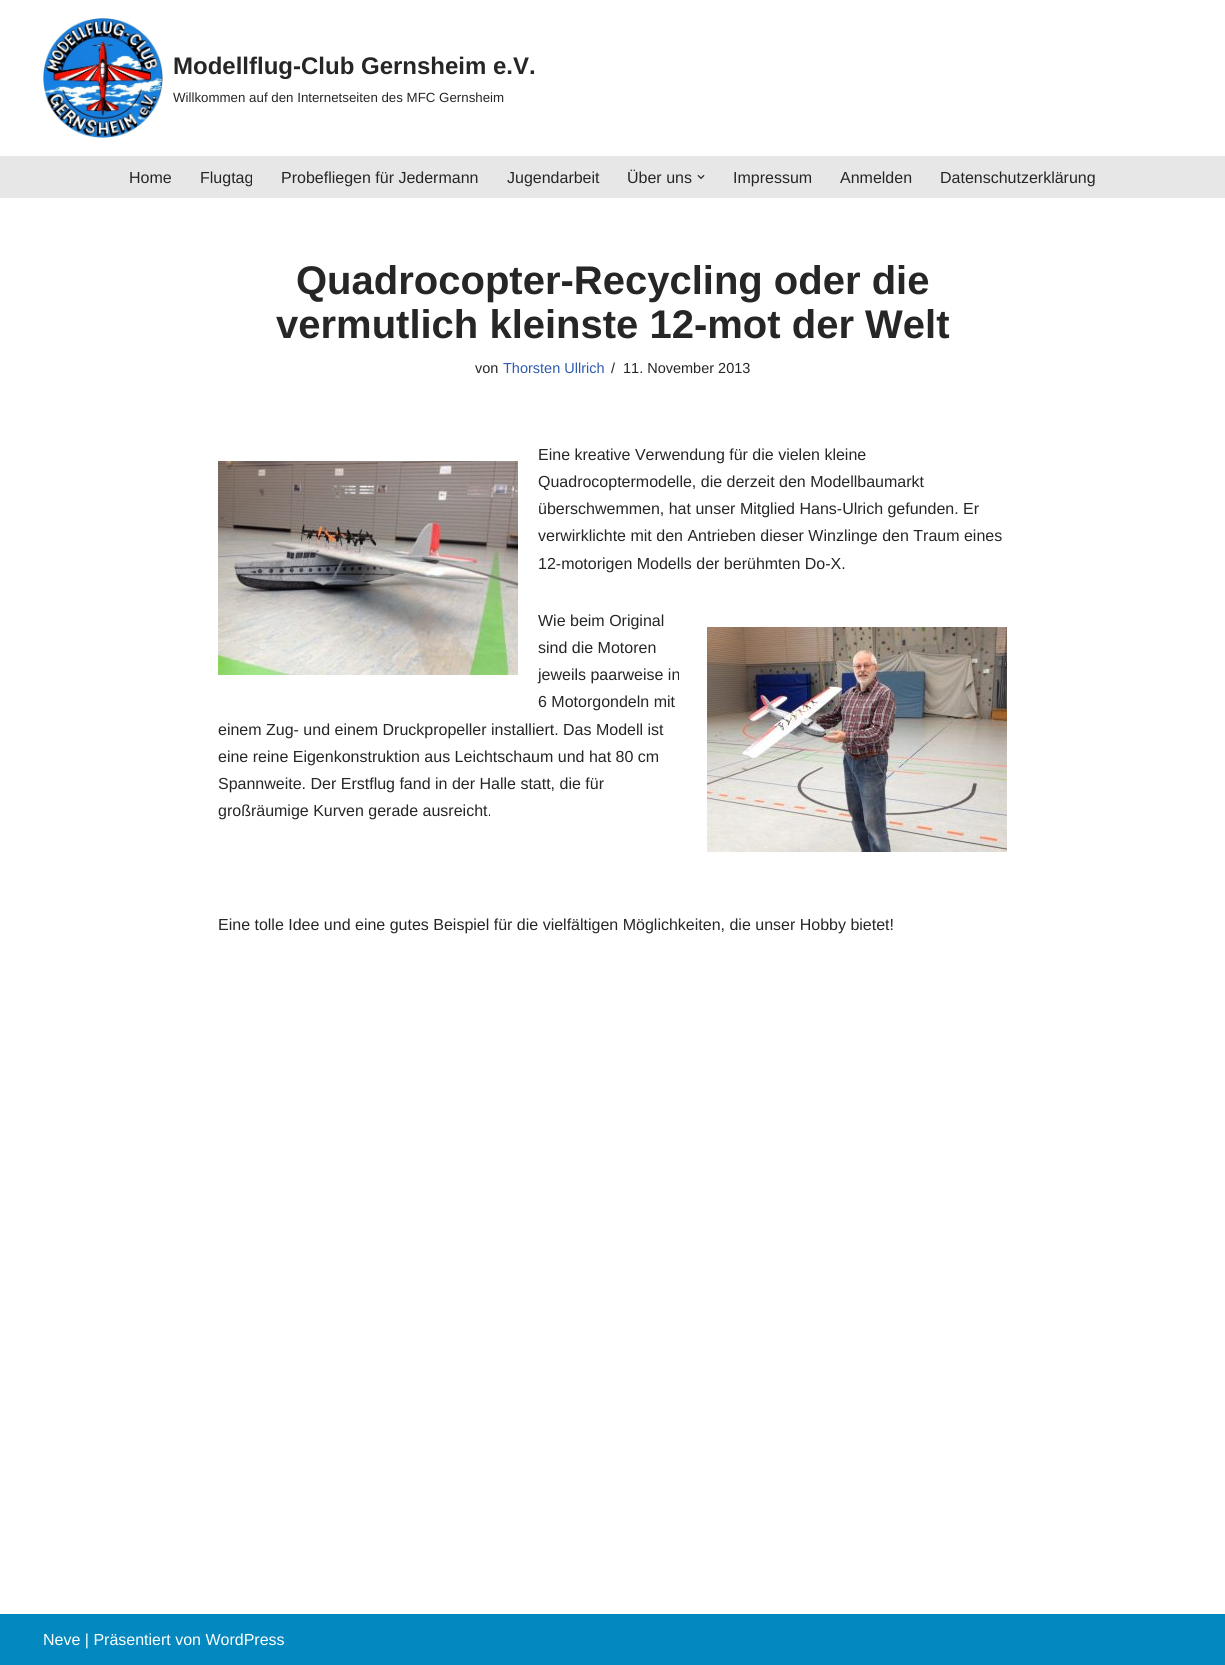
import math
import cairo


def use_color(cr, r, g, b):
  cr.set_source_rgb(r / 255, g / 255, b / 255)

def text(cr, x, y, s, family, size, color, bold=False, italic=False):
  cr.select_font_face(family, cairo.FONT_SLANT_ITALIC if italic else cairo.FONT_SLANT_NORMAL, cairo.FONT_WEIGHT_BOLD if bold else cairo.FONT_WEIGHT_NORMAL)
  cr.set_font_size(size)
  use_color(cr, *color)
  cr.move_to(x, y)
  cr.show_text(s)

def box(cr, x, y, w, h, *color):
  use_color(cr, *color)
  cr.rectangle(x, y, w, h)
  cr.fill()

def picture(cr, path, x, y, w, h):
  cr.save()
  cr.set_source_surface(cairo.ImageSurface.create_from_png(path), x, y)
  cr.rectangle(x, y, w, h)
  cr.fill()
  cr.restore()

def draw(cr):
  use_color(cr, 255, 255, 255)
  cr.paint()
  picture(cr, "img_01.png", 43, 18, 120, 120)
  box(cr, 0, 156, 1225, 42, 231, 231, 231)
  picture(cr, "img_02.png", 697, 175, 8, 4)
  picture(cr, "img_03.png", 218, 461, 300, 214)
  picture(cr, "img_04.png", 707, 627, 300, 225)
  box(cr, 0, 1614, 1225, 51, 3, 137, 191)
  text(cr, 173, 74, "Modellflug-Club Gernsheim e.V.", "Liberation Sans", 24, (39, 38, 38), bold=True)
  text(cr, 173, 102, "Willkommen auf den Internetseiten des MFC Gernsheim", "Liberation Sans", 13.3, (39, 38, 38))
  text(cr, 129, 183, "Home", "Liberation Sans", 16, (39, 38, 38))
  text(cr, 200, 183, "Flugtag", "Liberation Sans", 16, (39, 38, 38))
  text(cr, 281, 183, "Probefliegen für Jedermann", "Liberation Sans", 16, (39, 38, 38))
  text(cr, 507, 183, "Jugendarbeit", "Liberation Sans", 16, (39, 38, 38))
  text(cr, 627, 183, "Über uns", "Liberation Sans", 16, (39, 38, 38))
  text(cr, 733, 183, "Impressum", "Liberation Sans", 16, (39, 38, 38))
  text(cr, 840, 183, "Anmelden", "Liberation Sans", 16, (39, 38, 38))
  text(cr, 940, 183, "Datenschutzerklärung", "Liberation Sans", 16, (39, 38, 38))
  text(cr, 296, 294, "Quadrocopter-Recycling oder die", "Liberation Sans", 40, (39, 38, 38), bold=True)
  text(cr, 276, 338, "vermutlich kleinste 12-mot der Welt", "Liberation Sans", 40, (39, 38, 38), bold=True)
  text(cr, 475, 373, "von", "Liberation Sans", 14.5, (39, 38, 38))
  text(cr, 503, 373, "Thorsten Ullrich", "Liberation Sans", 14.5, (47, 90, 174))
  text(cr, 611, 373, "/", "Liberation Sans", 14.5, (39, 38, 38))
  text(cr, 623, 373, "11. November 2013", "Liberation Sans", 14.5, (39, 38, 38))
  text(cr, 538, 460, "Eine kreative Verwendung für die vielen kleine", "Liberation Sans", 16, (39, 38, 38))
  text(cr, 538, 487, "Quadrocoptermodelle, die derzeit den Modellbaumarkt", "Liberation Sans", 16, (39, 38, 38))
  text(cr, 538, 514, "überschwemmen, hat unser Mitglied Hans-Ulrich gefunden. Er", "Liberation Sans", 16, (39, 38, 38))
  text(cr, 538, 541, "verwirklichte mit den Antrieben dieser Winzlinge den Traum eines", "Liberation Sans", 16, (39, 38, 38))
  text(cr, 538, 569, "12-motorigen Modells der berühmten Do-X.", "Liberation Sans", 16, (39, 38, 38))
  text(cr, 538, 626, "Wie beim Original", "Liberation Sans", 16, (39, 38, 38))
  text(cr, 538, 653, "sind die Motoren", "Liberation Sans", 16, (39, 38, 38))
  text(cr, 538, 680, "jeweils paarweise in", "Liberation Sans", 16, (39, 38, 38))
  text(cr, 538, 707, "6 Motorgondeln mit", "Liberation Sans", 16, (39, 38, 38))
  text(cr, 218, 735, "einem Zug- und einem Druckpropeller installiert. Das Modell ist", "Liberation Sans", 16, (39, 38, 38))
  text(cr, 218, 762, "eine reine Eigenkonstruktion aus Leichtschaum und hat 80 cm", "Liberation Sans", 16, (39, 38, 38))
  text(cr, 218, 789, "Spannweite. Der Erstflug fand in der Halle statt, die für", "Liberation Sans", 16, (39, 38, 38))
  text(cr, 218, 816, "großräumige Kurven gerade ausreicht.", "Liberation Sans", 16, (39, 38, 38))
  text(cr, 218, 930, "Eine tolle Idee und eine gutes Beispiel für die vielfältigen Möglichkeiten, die unser Hobby bietet!", "Liberation Sans", 16, (39, 38, 38))
  text(cr, 43, 1645, "Neve | Präsentiert von WordPress", "Liberation Sans", 16, (255, 255, 255))


surface = cairo.ImageSurface(cairo.FORMAT_RGB24, 1225, 1665)
cr = cairo.Context(surface)
options = cairo.FontOptions()
options.set_hint_metrics(cairo.HINT_METRICS_OFF)
options.set_hint_style(cairo.HINT_STYLE_NONE)
cr.set_font_options(options)
cr.set_miter_limit(4)
draw(cr)
surface.write_to_png("out.png")
